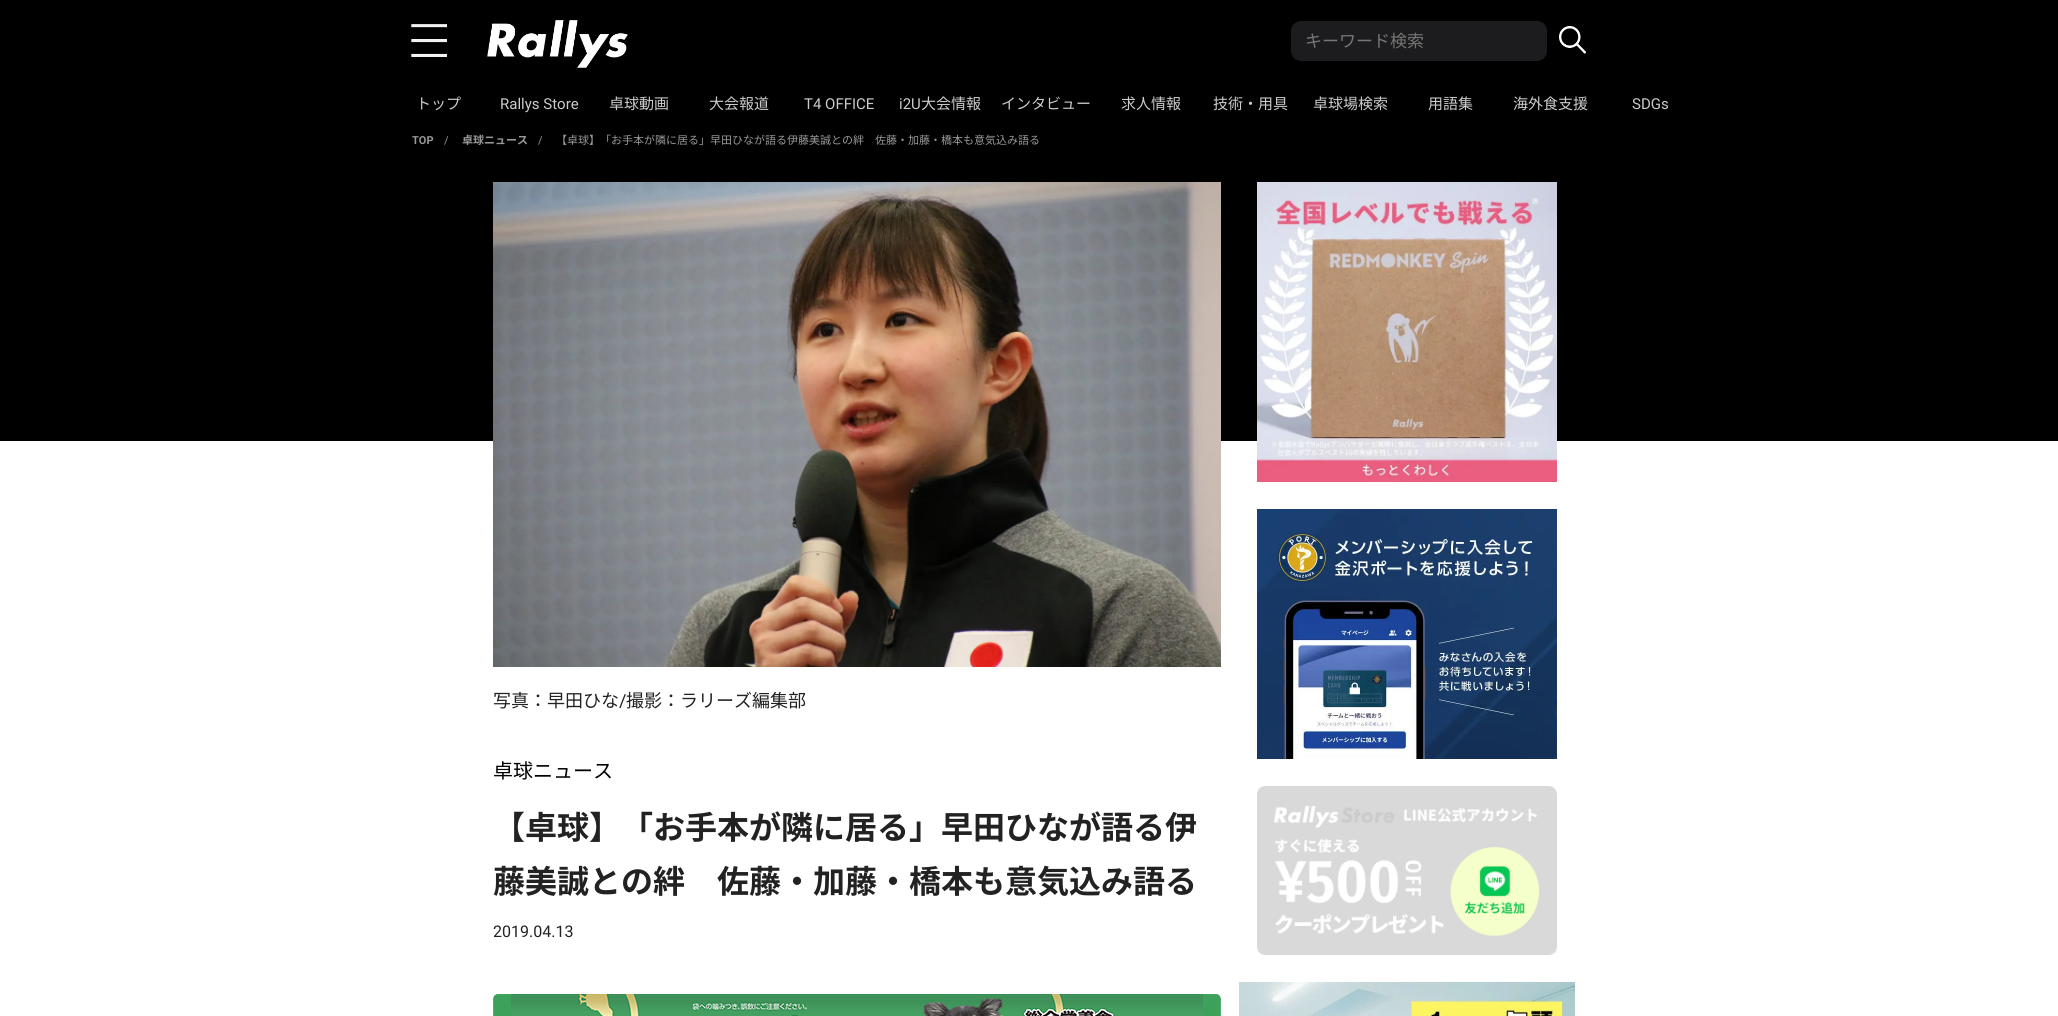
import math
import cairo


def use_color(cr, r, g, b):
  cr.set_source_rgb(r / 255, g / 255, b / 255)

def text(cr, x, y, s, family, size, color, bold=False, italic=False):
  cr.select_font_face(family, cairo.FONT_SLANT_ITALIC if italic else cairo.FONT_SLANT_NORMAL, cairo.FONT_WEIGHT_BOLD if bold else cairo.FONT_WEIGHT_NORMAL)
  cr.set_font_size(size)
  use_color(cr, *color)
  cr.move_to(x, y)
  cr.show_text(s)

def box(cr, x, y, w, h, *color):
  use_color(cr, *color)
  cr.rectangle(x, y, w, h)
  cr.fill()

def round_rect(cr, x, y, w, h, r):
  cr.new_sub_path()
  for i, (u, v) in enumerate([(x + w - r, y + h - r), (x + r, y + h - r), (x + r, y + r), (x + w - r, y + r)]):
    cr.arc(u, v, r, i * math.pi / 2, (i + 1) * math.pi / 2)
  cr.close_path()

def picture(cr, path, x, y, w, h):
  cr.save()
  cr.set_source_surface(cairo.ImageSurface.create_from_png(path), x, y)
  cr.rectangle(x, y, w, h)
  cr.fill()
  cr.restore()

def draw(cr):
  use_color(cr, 255, 255, 255)
  cr.paint()
  box(cr, 0, 0, 2058, 441, 0, 0, 0)
  picture(cr, "img_01.png", 411, 24, 36, 33)
  picture(cr, "img_02.png", 487, 20, 141, 48)
  use_color(cr, 28, 28, 30)
  round_rect(cr, 1291, 21, 256, 40, 10)
  cr.fill()
  picture(cr, "img_03.png", 1559, 26, 27, 28)
  picture(cr, "img_04.png", 493, 182, 728, 485)
  picture(cr, "img_05.png", 493, 994, 728, 22)
  picture(cr, "img_06.png", 1257, 182, 300, 300)
  picture(cr, "img_07.png", 1257, 509, 300, 250)
  picture(cr, "img_08.png", 1257, 786, 300, 169)
  picture(cr, "img_09.png", 1239, 982, 336, 34)
  text(cr, 1305, 47, "キーワード検索", "Noto Sans JP", 17, (117, 117, 117))
  text(cr, 416, 109, "トップ", "Noto Sans JP", 15, (204, 204, 204))
  text(cr, 500, 109, "Rallys Store", "Roboto", 15, (204, 204, 204))
  text(cr, 609, 109, "卓球動画", "Noto Sans JP", 15, (204, 204, 204))
  text(cr, 709, 109, "大会報道", "Noto Sans JP", 15, (204, 204, 204))
  text(cr, 804, 109, "T4 OFFICE", "Roboto", 15, (204, 204, 204))
  text(cr, 899, 109, "i2U", "Roboto", 15, (204, 204, 204))
  text(cr, 921, 109, "大会情報", "Noto Sans JP", 15, (204, 204, 204))
  text(cr, 1001, 109, "インタビュー", "Noto Sans JP", 15, (204, 204, 204))
  text(cr, 1121, 109, "求人情報", "Noto Sans JP", 15, (204, 204, 204))
  text(cr, 1213, 109, "技術・用具", "Noto Sans JP", 15, (204, 204, 204))
  text(cr, 1313, 109, "卓球場検索", "Noto Sans JP", 15, (204, 204, 204))
  text(cr, 1428, 109, "用語集", "Noto Sans JP", 15, (204, 204, 204))
  text(cr, 1513, 109, "海外食支援", "Noto Sans JP", 15, (204, 204, 204))
  text(cr, 1632, 109, "SDGs", "Roboto", 15, (204, 204, 204))
  text(cr, 412, 144, "TOP", "Roboto", 11, (153, 153, 153), bold=True)
  text(cr, 444, 144, "/", "Roboto", 11, (153, 153, 153))
  text(cr, 462, 144, "卓球ニュース", "Noto Sans JP", 11, (153, 153, 153), bold=True)
  text(cr, 538, 144, "/", "Roboto", 11, (153, 153, 153))
  text(cr, 556, 144, "【卓球】「お手本が隣に居る」早田ひなが語る伊藤美誠との絆　佐藤・加藤・橋本も意気込み語る", "Noto Sans JP", 11, (153, 153, 153))
  text(cr, 493, 707, "写真：早田ひな", "Noto Sans JP", 18, (34, 34, 34))
  text(cr, 619, 707, "/", "Roboto", 18, (34, 34, 34))
  text(cr, 626, 707, "撮影：ラリーズ編集部", "Noto Sans JP", 18, (34, 34, 34))
  text(cr, 493, 778, "卓球ニュース", "Noto Sans JP", 20, (0, 0, 0))
  text(cr, 493, 839, "【卓球】「お手本が隣に居る」早田ひなが語る伊", "Noto Sans JP", 32, (34, 34, 34), bold=True)
  text(cr, 493, 893, "藤美誠との絆　佐藤・加藤・橋本も意気込み語る", "Noto Sans JP", 32, (34, 34, 34), bold=True)
  text(cr, 493, 937, "2019.04.13", "Roboto", 16, (34, 34, 34))


surface = cairo.ImageSurface(cairo.FORMAT_RGB24, 2058, 1016)
cr = cairo.Context(surface)
options = cairo.FontOptions()
options.set_hint_metrics(cairo.HINT_METRICS_OFF)
options.set_hint_style(cairo.HINT_STYLE_NONE)
cr.set_font_options(options)
cr.set_miter_limit(4)
draw(cr)
surface.write_to_png("out.png")
